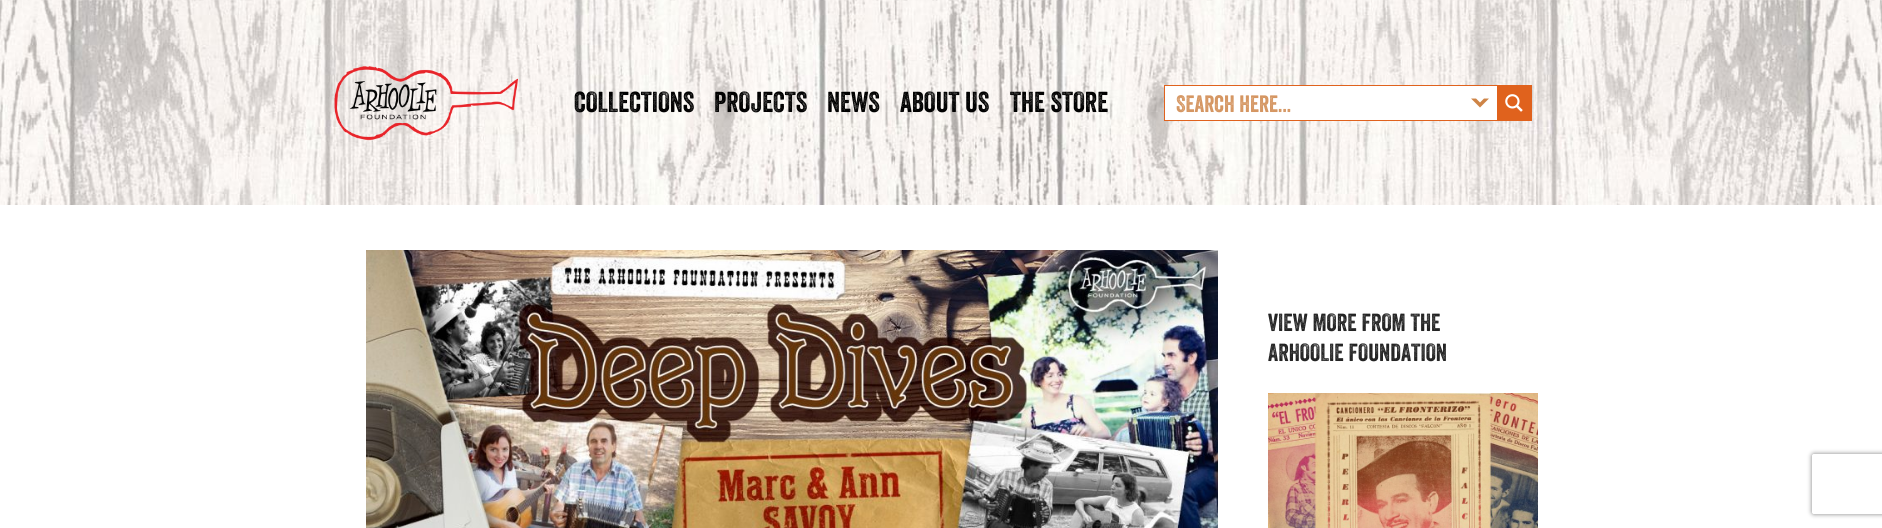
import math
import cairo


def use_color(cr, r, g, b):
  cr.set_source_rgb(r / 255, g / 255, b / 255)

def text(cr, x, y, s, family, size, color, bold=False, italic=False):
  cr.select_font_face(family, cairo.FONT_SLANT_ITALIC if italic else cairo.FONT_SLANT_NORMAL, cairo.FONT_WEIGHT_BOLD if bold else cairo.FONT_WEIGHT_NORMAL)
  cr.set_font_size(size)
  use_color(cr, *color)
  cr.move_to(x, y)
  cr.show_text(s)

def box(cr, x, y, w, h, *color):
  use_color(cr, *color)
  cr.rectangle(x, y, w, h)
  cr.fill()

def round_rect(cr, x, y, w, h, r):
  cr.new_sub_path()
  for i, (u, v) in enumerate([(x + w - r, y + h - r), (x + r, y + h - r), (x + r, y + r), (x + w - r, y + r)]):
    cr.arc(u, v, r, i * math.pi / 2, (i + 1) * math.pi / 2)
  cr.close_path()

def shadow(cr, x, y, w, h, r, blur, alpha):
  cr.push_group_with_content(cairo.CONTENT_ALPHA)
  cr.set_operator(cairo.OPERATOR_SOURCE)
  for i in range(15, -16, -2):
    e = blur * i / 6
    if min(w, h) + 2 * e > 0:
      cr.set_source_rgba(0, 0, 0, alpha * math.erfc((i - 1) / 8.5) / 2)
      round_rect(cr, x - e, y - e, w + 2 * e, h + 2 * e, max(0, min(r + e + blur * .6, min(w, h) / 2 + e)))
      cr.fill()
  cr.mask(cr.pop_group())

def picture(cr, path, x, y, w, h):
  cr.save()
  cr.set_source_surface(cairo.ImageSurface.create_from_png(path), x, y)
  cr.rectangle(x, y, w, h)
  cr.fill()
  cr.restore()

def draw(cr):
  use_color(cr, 255, 255, 255)
  cr.paint()
  picture(cr, "img_01.png", 0, 0, 1882, 205)
  picture(cr, "img_02.png", 334, 66, 184, 75)
  box(cr, 1165, 86, 332, 34, 255, 255, 255)
  cr.rectangle(1164.5, 85.5, 367, 35)
  use_color(cr, 224, 98, 29)
  cr.set_line_width(1)
  cr.stroke()
  use_color(cr, 206, 132, 70)
  cr.new_path()
  cr.move_to(1489, 98.5)
  cr.line_to(1484, 98.5)
  cr.line_to(1480, 102.5)
  cr.line_to(1476, 98.5)
  cr.line_to(1471, 98.5)
  cr.line_to(1480, 107.5)
  cr.close_path()
  cr.fill()
  box(cr, 1497, 86, 34, 34, 224, 98, 29)
  picture(cr, "img_03.png", 1505, 94, 18, 18)
  picture(cr, "img_04.png", 366, 250, 852, 278)
  picture(cr, "img_05.png", 1268, 393, 270, 135)
  cr.save()
  cr.set_fill_rule(cairo.FILL_RULE_EVEN_ODD)
  cr.new_path()
  cr.move_to(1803, 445)
  cr.line_to(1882, 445)
  cr.line_to(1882, 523)
  cr.line_to(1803, 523)
  cr.close_path()
  cr.move_to(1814, 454)
  cr.line_to(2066, 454)
  cr.curve_to(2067, 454, 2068, 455, 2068, 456)
  cr.line_to(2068, 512)
  cr.curve_to(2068, 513, 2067, 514, 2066, 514)
  cr.line_to(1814, 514)
  cr.curve_to(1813, 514, 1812, 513, 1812, 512)
  cr.line_to(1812, 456)
  cr.curve_to(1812, 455, 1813, 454, 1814, 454)
  cr.close_path()
  cr.clip()
  use_color(cr, 128, 128, 128)
  shadow(cr, 1812, 454, 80, 60, 2, 2.5, 1)
  cr.restore()
  text(cr, 574, 112, "COLLECTIONS", "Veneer", 28, (0, 0, 0))
  text(cr, 714, 112, "PROJECTS", "Veneer", 28, (0, 0, 0))
  text(cr, 827, 112, "NEWS", "Veneer", 28, (0, 0, 0))
  text(cr, 900, 112, "ABOUT US", "Veneer", 28, (0, 0, 0))
  text(cr, 1010, 112, "THE STORE", "Veneer", 28, (0, 0, 0))
  text(cr, 1176, 112, "Search here...", "Veneer", 23, (213, 150, 98))
  text(cr, 1268, 331, "VIEW MORE FROM THE", "Veneer", 24, (35, 35, 35))
  text(cr, 1268, 361, "ARHOOLIE FOUNDATION", "Veneer", 24, (35, 35, 35))


surface = cairo.ImageSurface(cairo.FORMAT_RGB24, 1882, 528)
cr = cairo.Context(surface)
options = cairo.FontOptions()
options.set_hint_metrics(cairo.HINT_METRICS_OFF)
options.set_hint_style(cairo.HINT_STYLE_NONE)
cr.set_font_options(options)
cr.set_miter_limit(4)
draw(cr)
surface.write_to_png("out.png")
